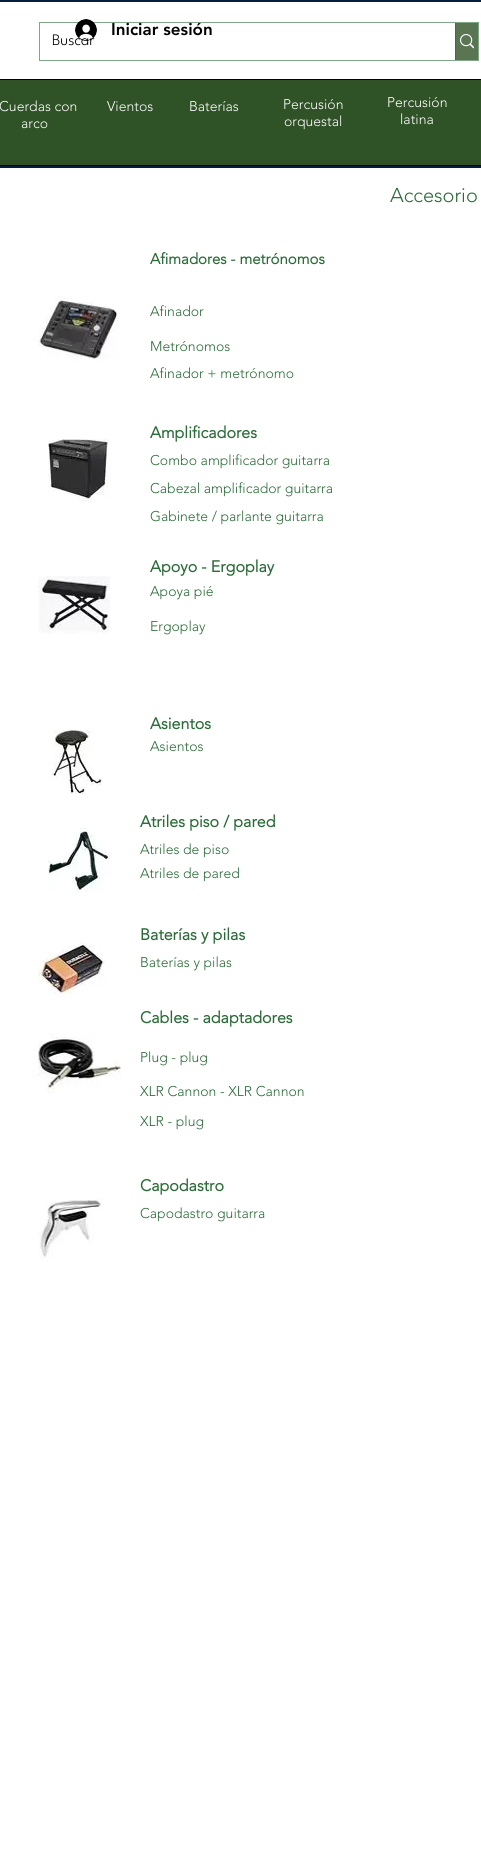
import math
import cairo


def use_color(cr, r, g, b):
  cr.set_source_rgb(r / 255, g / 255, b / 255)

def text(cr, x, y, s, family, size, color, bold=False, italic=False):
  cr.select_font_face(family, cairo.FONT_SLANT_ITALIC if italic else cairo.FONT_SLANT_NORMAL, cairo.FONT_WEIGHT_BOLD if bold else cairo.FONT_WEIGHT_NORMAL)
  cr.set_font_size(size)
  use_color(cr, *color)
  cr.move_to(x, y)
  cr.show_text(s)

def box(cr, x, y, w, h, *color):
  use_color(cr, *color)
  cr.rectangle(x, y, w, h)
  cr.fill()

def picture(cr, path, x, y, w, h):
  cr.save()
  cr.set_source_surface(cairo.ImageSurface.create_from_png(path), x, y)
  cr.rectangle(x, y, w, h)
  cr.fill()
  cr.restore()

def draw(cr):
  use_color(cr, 255, 255, 255)
  cr.paint()
  box(cr, 0, 0, 481, 2, 4, 31, 62)
  box(cr, 0, 166, 481, 2, 4, 31, 62)
  cr.rectangle(39.5, 22.5, 439, 38)
  use_color(cr, 127, 166, 135)
  cr.set_line_width(1)
  cr.stroke()
  box(cr, 456, 23, 22, 37, 89, 117, 81)
  box(cr, 455, 23, 1, 37, 61, 111, 65)
  picture(cr, "img_02.png", 460, 34, 14, 15)
  use_color(cr, 47, 82, 38)
  cr.rectangle(-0.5, 79.5, 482, 86)
  cr.fill_preserve()
  use_color(cr, 0, 0, 0)
  cr.stroke()
  picture(cr, "img_03.png", 38, 296, 80, 65)
  picture(cr, "img_04.png", 48, 439, 64, 64)
  picture(cr, "img_05.png", 38, 576, 72, 58)
  picture(cr, "img_06.png", 50, 730, 52, 64)
  picture(cr, "img_07.png", 48, 828, 64, 64)
  picture(cr, "img_08.png", 38, 942, 68, 53)
  picture(cr, "img_09.png", 38, 1034, 84, 59)
  picture(cr, "img_10.png", 38, 1199, 64, 60)
  text(cr, 111, 35, "Iniciar sesión", "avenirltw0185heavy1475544 Black", 17, (0, 0, 0))
  text(cr, 52, 45, "Buscar", "League Spartan Thin", 16, (0, 0, 0))
  picture(cr, "img_01.png", 75, 19, 22, 22)
  text(cr, -1, 111, "Cuerdas con", "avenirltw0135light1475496 Light", 14, (255, 255, 255))
  text(cr, 21, 128, "arco", "avenirltw0135light1475496 Light", 14, (255, 255, 255))
  text(cr, 107, 111, "Vientos", "avenirltw0135light1475496 Light", 14, (255, 255, 255))
  text(cr, 189, 111, "Baterías", "avenirltw0135light1475496 Light", 14, (255, 255, 255))
  text(cr, 283, 109, "Percusión", "avenirltw0135light1475496 Light", 14, (255, 255, 255))
  text(cr, 284, 126, "orquestal", "avenirltw0135light1475496 Light", 14, (255, 255, 255))
  text(cr, 387, 107, "Percusión", "avenirltw0135light1475496 Light", 14, (255, 255, 255))
  text(cr, 400, 124, "latina", "avenirltw0135light1475496 Light", 14, (255, 255, 255))
  text(cr, 390, 202, "Accesorio", "avenirltw0135light1475496 Light", 20, (42, 107, 55))
  text(cr, 150, 264, "Afimadores - metrónomos", "avenirltw0135light1475496", 15, (42, 107, 55), bold=True)
  text(cr, 150, 316, "Afinador", "avenirltw0135light1475496 Light", 14, (42, 107, 55))
  text(cr, 150, 351, "Metrónomos", "avenirltw0135light1475496 Light", 14, (42, 107, 55))
  text(cr, 150, 378, "Afinador + metrónomo", "avenirltw0135light1475496 Light", 14, (42, 107, 55))
  text(cr, 150, 438, "Amplificadores", "avenirltw0135light1475496", 16, (42, 107, 55), bold=True)
  text(cr, 150, 465, "Combo amplificador guitarra", "avenirltw0135light1475496 Light", 14, (42, 107, 55))
  text(cr, 150, 493, "Cabezal amplificador guitarra", "avenirltw0135light1475496 Light", 14, (42, 107, 55))
  text(cr, 150, 521, "Gabinete / parlante guitarra", "avenirltw0135light1475496 Light", 14, (42, 107, 55))
  text(cr, 150, 572, "Apoyo - Ergoplay", "avenirltw0135light1475496", 16, (42, 107, 55), bold=True)
  text(cr, 150, 596, "Apoya pié", "avenirltw0135light1475496 Light", 14, (42, 107, 55))
  text(cr, 150, 631, "Ergoplay", "avenirltw0135light1475496 Light", 14, (42, 107, 55))
  text(cr, 150, 729, "Asientos", "avenirltw0135light1475496", 16, (42, 107, 55), bold=True)
  text(cr, 150, 751, "Asientos", "avenirltw0135light1475496 Light", 14, (42, 107, 55))
  text(cr, 140, 827, "Atriles piso / pared", "avenirltw0135light1475496", 16, (42, 107, 55), bold=True)
  text(cr, 140, 854, "Atriles de piso", "avenirltw0135light1475496 Light", 14, (42, 107, 55))
  text(cr, 140, 878, "Atriles de pared", "avenirltw0135light1475496 Light", 14, (42, 107, 55))
  text(cr, 140, 940, "Baterías y pilas", "avenirltw0135light1475496", 16, (42, 107, 55), bold=True)
  text(cr, 140, 967, "Baterías y pilas", "avenirltw0135light1475496 Light", 14, (42, 107, 55))
  text(cr, 140, 1023, "Cables - adaptadores", "avenirltw0135light1475496", 16, (42, 107, 55), bold=True)
  text(cr, 140, 1062, "Plug - plug", "avenirltw0135light1475496 Light", 14, (42, 107, 55))
  text(cr, 140, 1096, "XLR Cannon - XLR Cannon", "avenirltw0135light1475496 Light", 14, (42, 107, 55))
  text(cr, 140, 1126, "XLR - plug", "avenirltw0135light1475496 Light", 14, (42, 107, 55))
  text(cr, 140, 1191, "Capodastro", "avenirltw0135light1475496", 16, (42, 107, 55), bold=True)
  text(cr, 140, 1218, "Capodastro guitarra", "avenirltw0135light1475496 Light", 14, (42, 107, 55))


surface = cairo.ImageSurface(cairo.FORMAT_RGB24, 481, 1868)
cr = cairo.Context(surface)
options = cairo.FontOptions()
options.set_hint_metrics(cairo.HINT_METRICS_OFF)
options.set_hint_style(cairo.HINT_STYLE_NONE)
cr.set_font_options(options)
cr.set_miter_limit(4)
draw(cr)
surface.write_to_png("out.png")
